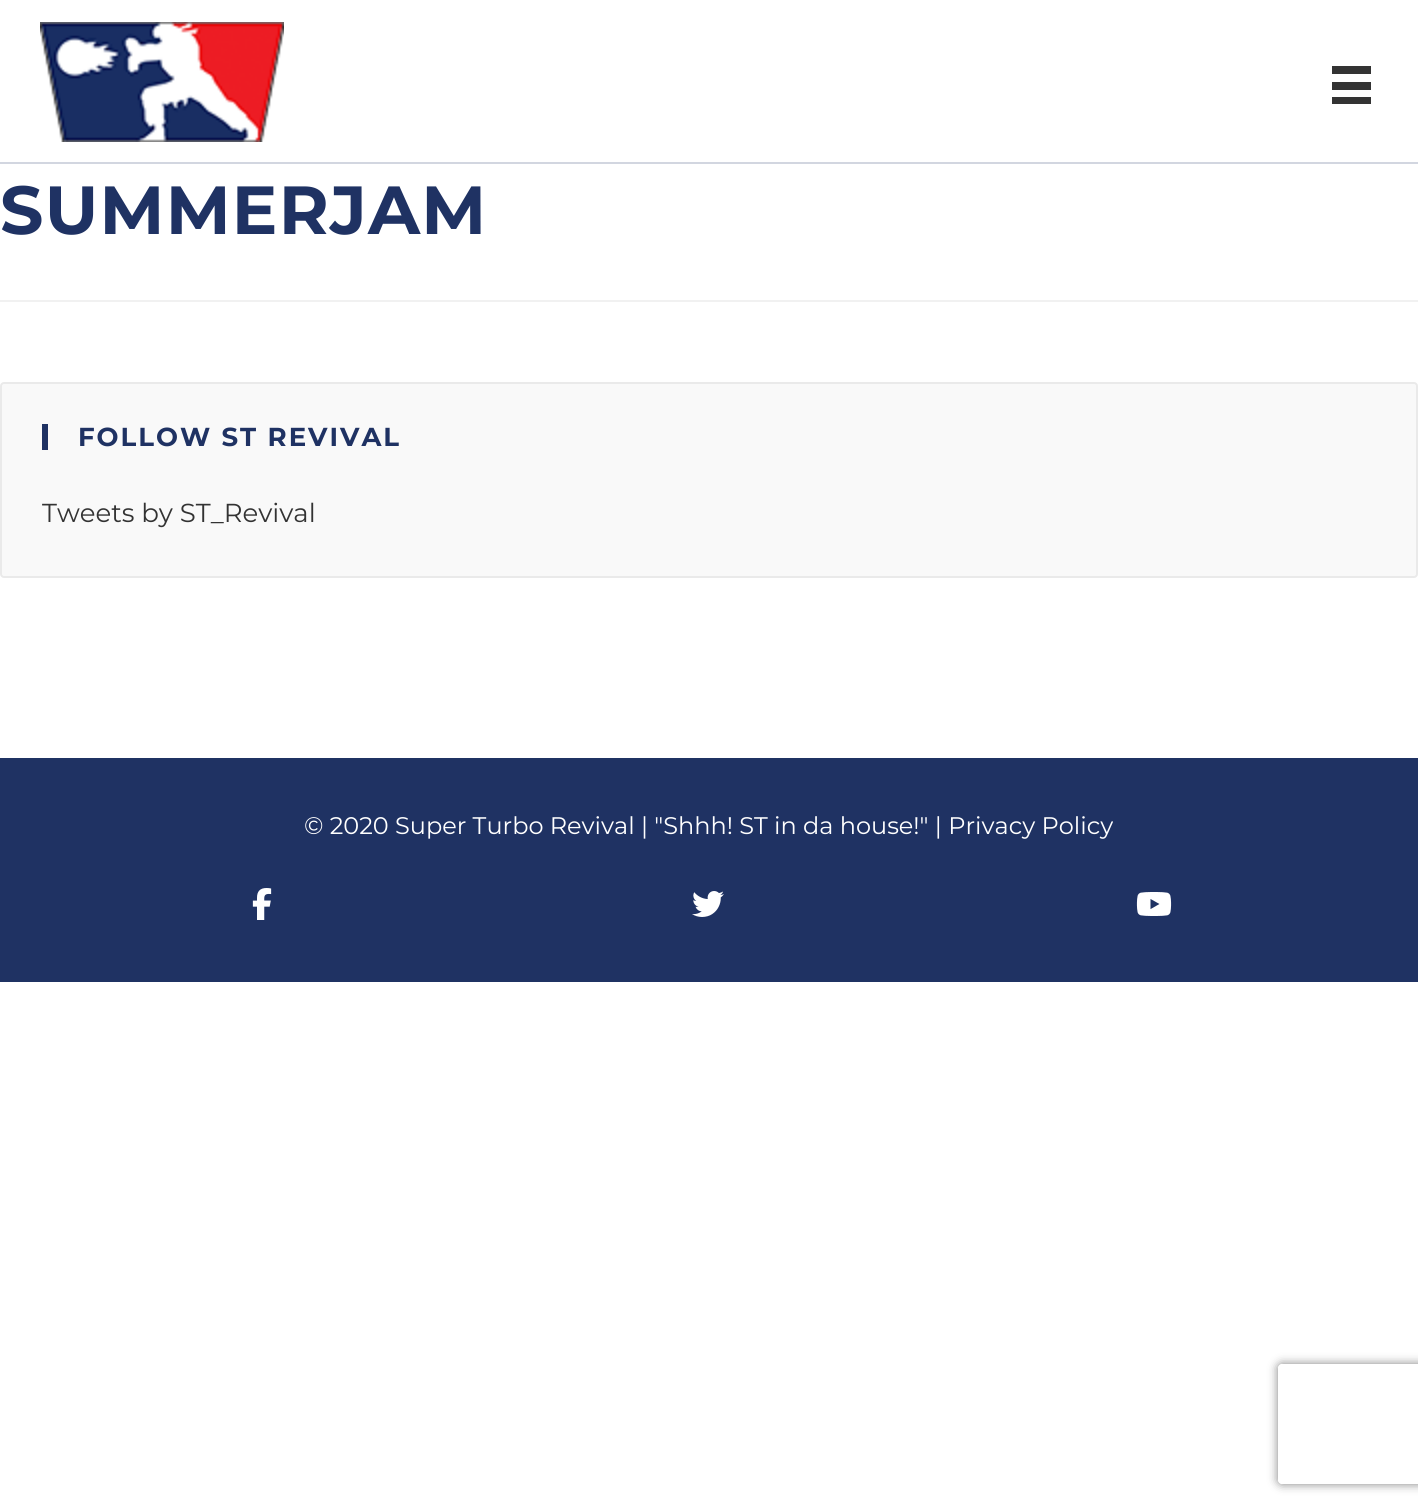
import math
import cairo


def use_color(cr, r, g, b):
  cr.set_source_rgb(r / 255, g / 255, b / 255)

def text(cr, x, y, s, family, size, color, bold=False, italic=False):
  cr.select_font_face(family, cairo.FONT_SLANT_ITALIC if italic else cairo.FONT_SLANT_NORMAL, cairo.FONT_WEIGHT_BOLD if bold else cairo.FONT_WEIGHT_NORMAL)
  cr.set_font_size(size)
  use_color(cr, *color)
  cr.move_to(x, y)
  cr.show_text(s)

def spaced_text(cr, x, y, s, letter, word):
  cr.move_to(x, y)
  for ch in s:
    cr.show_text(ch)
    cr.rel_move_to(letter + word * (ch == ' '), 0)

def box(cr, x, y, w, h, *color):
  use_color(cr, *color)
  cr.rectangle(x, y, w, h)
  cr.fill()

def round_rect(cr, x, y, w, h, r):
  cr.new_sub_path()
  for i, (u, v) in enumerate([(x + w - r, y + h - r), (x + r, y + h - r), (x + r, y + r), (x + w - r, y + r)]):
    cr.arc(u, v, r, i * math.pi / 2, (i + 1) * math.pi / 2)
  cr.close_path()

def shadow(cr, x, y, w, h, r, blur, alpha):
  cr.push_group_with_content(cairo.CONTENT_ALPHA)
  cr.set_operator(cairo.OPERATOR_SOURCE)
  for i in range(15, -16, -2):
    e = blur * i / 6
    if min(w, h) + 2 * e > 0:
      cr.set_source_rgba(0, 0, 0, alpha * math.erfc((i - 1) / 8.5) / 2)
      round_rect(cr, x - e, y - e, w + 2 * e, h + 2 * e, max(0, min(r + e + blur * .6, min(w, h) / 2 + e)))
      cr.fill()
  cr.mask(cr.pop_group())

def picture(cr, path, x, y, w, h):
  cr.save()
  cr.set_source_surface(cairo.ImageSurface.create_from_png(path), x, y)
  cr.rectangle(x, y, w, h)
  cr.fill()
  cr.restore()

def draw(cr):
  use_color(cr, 255, 255, 255)
  cr.paint()
  box(cr, 0, 162, 1418, 2, 210, 214, 224)
  picture(cr, "img_01.png", 40, 22, 244, 120)
  box(cr, 1332, 66, 39, 8, 51, 51, 51)
  box(cr, 1332, 82, 39, 8, 51, 51, 51)
  box(cr, 1332, 97, 39, 7, 51, 51, 51)
  box(cr, 0, 300, 1418, 2, 241, 241, 241)
  use_color(cr, 249, 249, 249)
  round_rect(cr, 1, 383, 1416, 194, 3)
  cr.fill_preserve()
  use_color(cr, 234, 234, 234)
  cr.stroke()
  box(cr, 42, 424, 6, 26, 31, 50, 99)
  box(cr, 0, 758, 1418, 224, 31, 50, 99)
  picture(cr, "img_02.png", 252, 888, 20, 32)
  picture(cr, "img_03.png", 692, 891, 32, 26)
  picture(cr, "img_04.png", 1136, 892, 36, 24)
  cr.save()
  cr.set_fill_rule(cairo.FILL_RULE_EVEN_ODD)
  cr.new_path()
  cr.move_to(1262, 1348)
  cr.line_to(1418, 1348)
  cr.line_to(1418, 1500)
  cr.line_to(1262, 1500)
  cr.close_path()
  cr.move_to(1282, 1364)
  cr.line_to(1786, 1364)
  cr.curve_to(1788, 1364, 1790, 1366, 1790, 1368)
  cr.line_to(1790, 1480)
  cr.curve_to(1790, 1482, 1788, 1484, 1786, 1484)
  cr.line_to(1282, 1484)
  cr.curve_to(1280, 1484, 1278, 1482, 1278, 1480)
  cr.line_to(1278, 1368)
  cr.curve_to(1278, 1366, 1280, 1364, 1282, 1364)
  cr.close_path()
  cr.clip()
  use_color(cr, 128, 128, 128)
  shadow(cr, 1278, 1364, 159, 120, 4, 5, 1)
  cr.restore()
  cr.select_font_face("Montserrat", cairo.FONT_SLANT_NORMAL, cairo.FONT_WEIGHT_BOLD)
  cr.set_font_size(68)
  spaced_text(cr, 0, 234, "SUMMERJAM", 1.25, 0)
  cr.set_font_size(26)
  spaced_text(cr, 78, 446, "FOLLOW ST REVIVAL", 2, 0)
  text(cr, 42, 522, "Tweets by ST_Revival", "Montserrat", 26, (51, 51, 51))
  text(cr, 304, 834, "© 2020 Super Turbo Revival | \"Shhh! ST in da house!\" | Privacy Policy", "Montserrat", 24, (255, 255, 255))


surface = cairo.ImageSurface(cairo.FORMAT_RGB24, 1418, 1511)
cr = cairo.Context(surface)
options = cairo.FontOptions()
options.set_hint_metrics(cairo.HINT_METRICS_OFF)
options.set_hint_style(cairo.HINT_STYLE_NONE)
cr.set_font_options(options)
cr.set_miter_limit(4)
draw(cr)
surface.write_to_png("out.png")
